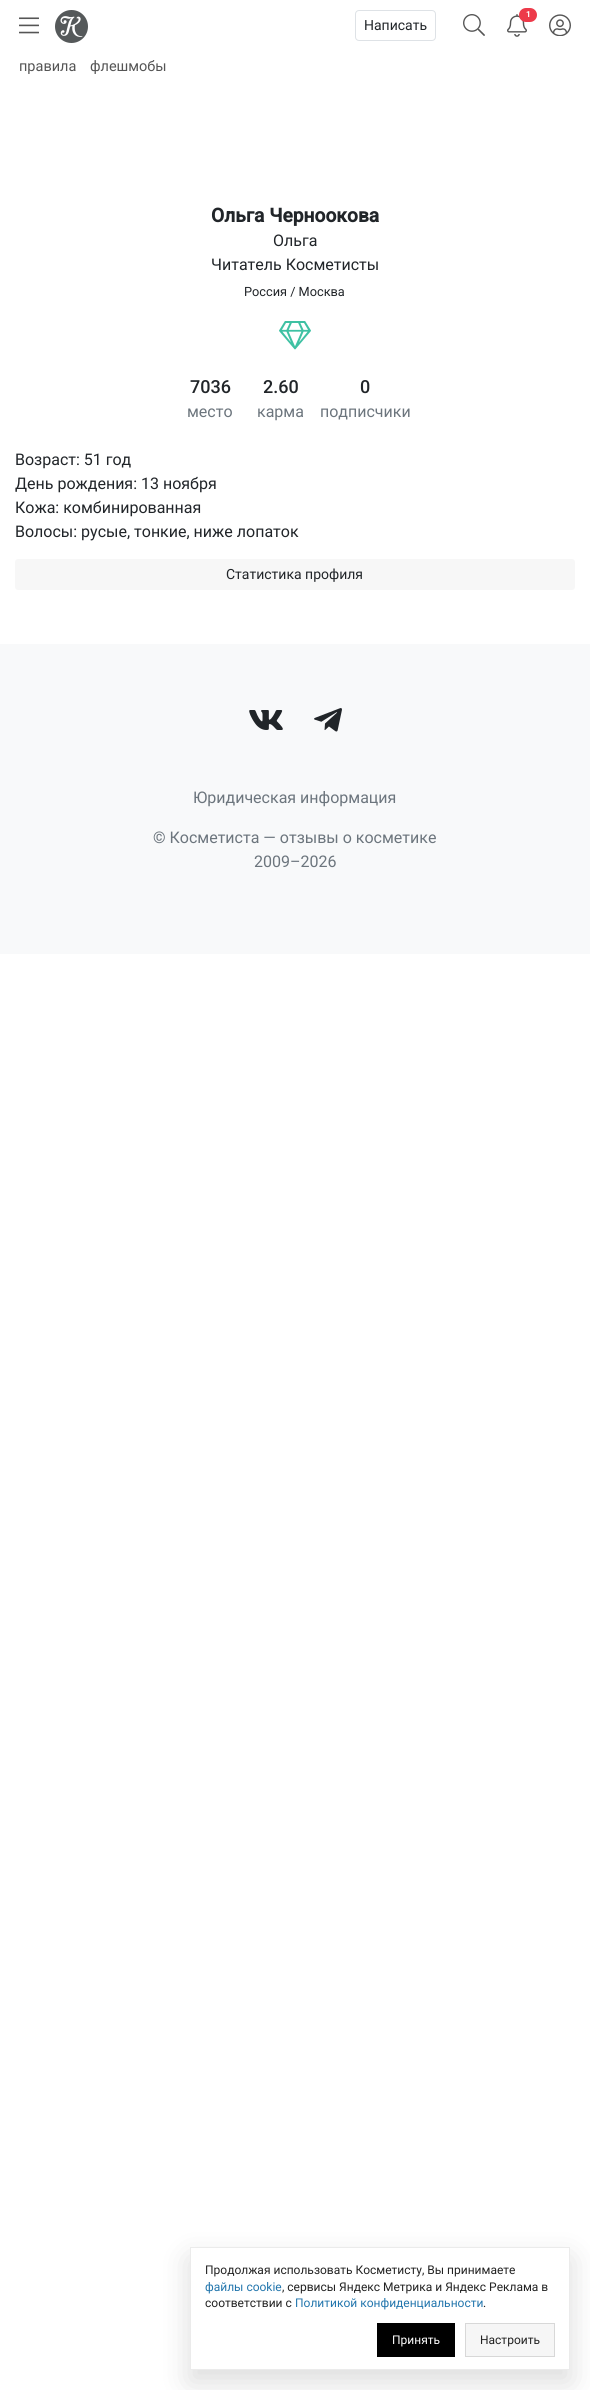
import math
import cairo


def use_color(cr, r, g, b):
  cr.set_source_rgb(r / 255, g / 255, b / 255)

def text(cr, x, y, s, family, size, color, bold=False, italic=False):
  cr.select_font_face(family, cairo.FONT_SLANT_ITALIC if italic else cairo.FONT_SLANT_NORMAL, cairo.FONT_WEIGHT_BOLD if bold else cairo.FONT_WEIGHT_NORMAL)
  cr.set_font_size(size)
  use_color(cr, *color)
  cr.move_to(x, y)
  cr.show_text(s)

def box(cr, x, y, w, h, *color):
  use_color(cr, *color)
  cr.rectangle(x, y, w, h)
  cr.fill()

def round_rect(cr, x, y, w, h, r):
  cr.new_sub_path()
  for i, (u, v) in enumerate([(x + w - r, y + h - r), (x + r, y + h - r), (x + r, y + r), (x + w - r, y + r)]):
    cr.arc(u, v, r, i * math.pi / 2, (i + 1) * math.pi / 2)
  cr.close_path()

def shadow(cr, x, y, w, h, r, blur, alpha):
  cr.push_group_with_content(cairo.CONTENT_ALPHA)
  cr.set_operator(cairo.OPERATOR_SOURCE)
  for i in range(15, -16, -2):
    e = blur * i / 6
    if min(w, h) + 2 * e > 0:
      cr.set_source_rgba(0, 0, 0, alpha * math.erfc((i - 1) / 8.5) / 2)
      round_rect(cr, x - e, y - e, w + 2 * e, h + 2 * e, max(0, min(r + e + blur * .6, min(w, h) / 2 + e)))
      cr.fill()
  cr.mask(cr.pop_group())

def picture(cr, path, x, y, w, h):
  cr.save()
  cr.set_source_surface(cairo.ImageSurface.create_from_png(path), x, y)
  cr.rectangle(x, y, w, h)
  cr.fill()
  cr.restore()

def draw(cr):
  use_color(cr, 255, 255, 255)
  cr.paint()
  picture(cr, "img_01.png", 19, 17, 20, 17)
  picture(cr, "img_02.png", 55, 10, 33, 33)
  round_rect(cr, 355.5, 10.5, 80, 30, 3.5)
  use_color(cr, 222, 226, 230)
  cr.set_line_width(1)
  cr.stroke()
  picture(cr, "img_03.png", 463, 14, 22, 22)
  picture(cr, "img_04.png", 507, 14, 20, 23)
  use_color(cr, 237, 58, 74)
  round_rect(cr, 519, 8, 18, 14, 7)
  cr.fill()
  picture(cr, "img_05.png", 549, 14, 22, 22)
  picture(cr, "img_06.png", 279, 321, 32, 29)
  use_color(cr, 247, 247, 247)
  round_rect(cr, 15, 559, 560, 31, 3)
  cr.fill()
  box(cr, 0, 644, 590, 310, 248, 249, 250)
  picture(cr, "img_07.png", 249, 710, 34, 20)
  picture(cr, "img_08.png", 314, 708, 28, 24)
  cr.save()
  cr.set_fill_rule(cairo.FILL_RULE_EVEN_ODD)
  cr.new_path()
  cr.move_to(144, 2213)
  cr.line_to(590, 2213)
  cr.line_to(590, 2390)
  cr.line_to(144, 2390)
  cr.close_path()
  cr.move_to(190, 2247)
  cr.line_to(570, 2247)
  cr.line_to(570, 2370)
  cr.line_to(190, 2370)
  cr.close_path()
  cr.clip()
  use_color(cr, 0, 0, 0)
  shadow(cr, 190, 2259, 380, 123, 0, 15, 0.14)
  cr.restore()
  cr.rectangle(190.5, 2247.5, 379, 122)
  use_color(cr, 235, 235, 235)
  cr.stroke()
  box(cr, 377, 2323, 78, 34, 0, 0, 0)
  use_color(cr, 246, 246, 246)
  cr.rectangle(465.5, 2323.5, 89, 33)
  cr.fill_preserve()
  use_color(cr, 216, 216, 216)
  cr.stroke()
  text(cr, 364, 30, "Написать", "Roboto", 14, (33, 37, 41))
  text(cr, 526, 17, "1", "Roboto", 8, (255, 255, 255), bold=True)
  text(cr, 19, 71, "правила", "Roboto", 14.5, (85, 85, 85))
  text(cr, 90, 71, "флешмобы", "Roboto", 14.5, (85, 85, 85))
  text(cr, 211, 222, "Ольга Черноокова", "Roboto", 19.25, (33, 37, 41), bold=True)
  text(cr, 273, 246, "Ольга", "Roboto", 16, (33, 37, 41))
  text(cr, 211, 270, "Читатель Косметисты", "Roboto", 16, (33, 37, 41))
  text(cr, 244, 296, "Россия / Москва", "Roboto", 12.75, (33, 37, 41))
  text(cr, 190, 393, "7036", "Roboto Medium", 18, (33, 37, 41))
  text(cr, 187, 417, "место", "Roboto", 16, (108, 117, 125))
  text(cr, 263, 393, "2.60", "Roboto Medium", 18, (33, 37, 41))
  text(cr, 257, 417, "карма", "Roboto", 16, (108, 117, 125))
  text(cr, 360, 393, "0", "Roboto Medium", 18, (33, 37, 41))
  text(cr, 320, 417, "подписчики", "Roboto", 16, (108, 117, 125))
  text(cr, 15, 465, "Возраст: 51 год", "Roboto", 16, (33, 37, 41))
  text(cr, 15, 489, "День рождения: 13 ноября", "Roboto", 16, (33, 37, 41))
  text(cr, 15, 513, "Кожа: комбинированная", "Roboto", 16, (33, 37, 41))
  text(cr, 15, 537, "Волосы: русые, тонкие, ниже лопаток", "Roboto", 16, (33, 37, 41))
  text(cr, 226, 579, "Статистика профиля", "Roboto", 14, (33, 37, 41))
  text(cr, 193, 803, "Юридическая информация", "Roboto", 16, (108, 117, 125))
  text(cr, 153, 843, "© Косметиста — отзывы о косметике", "Roboto", 16, (108, 117, 125))
  text(cr, 254, 867, "2009–2026", "Roboto", 16, (108, 117, 125))
  text(cr, 205, 2274, "Продолжая использовать Косметисту, Вы принимаете", "Roboto", 12, (34, 34, 34))
  text(cr, 205, 2291, "файлы cookie", "Roboto", 12, (35, 118, 173))
  text(cr, 282, 2291, ", сервисы Яндекс Метрика и Яндекс Реклама в", "Roboto", 12, (34, 34, 34))
  text(cr, 205, 2307, "соответствии с", "Roboto", 12, (34, 34, 34))
  text(cr, 295, 2307, "Политикой конфиденциальности", "Roboto", 12, (35, 118, 173))
  text(cr, 483, 2307, ".", "Roboto", 12, (34, 34, 34))
  text(cr, 392, 2344, "Принять", "Roboto", 12, (255, 255, 255))
  text(cr, 480, 2344, "Настроить", "Roboto", 12, (34, 34, 34))


surface = cairo.ImageSurface(cairo.FORMAT_RGB24, 590, 2390)
cr = cairo.Context(surface)
options = cairo.FontOptions()
options.set_hint_metrics(cairo.HINT_METRICS_OFF)
options.set_hint_style(cairo.HINT_STYLE_NONE)
cr.set_font_options(options)
cr.set_miter_limit(4)
draw(cr)
surface.write_to_png("out.png")
